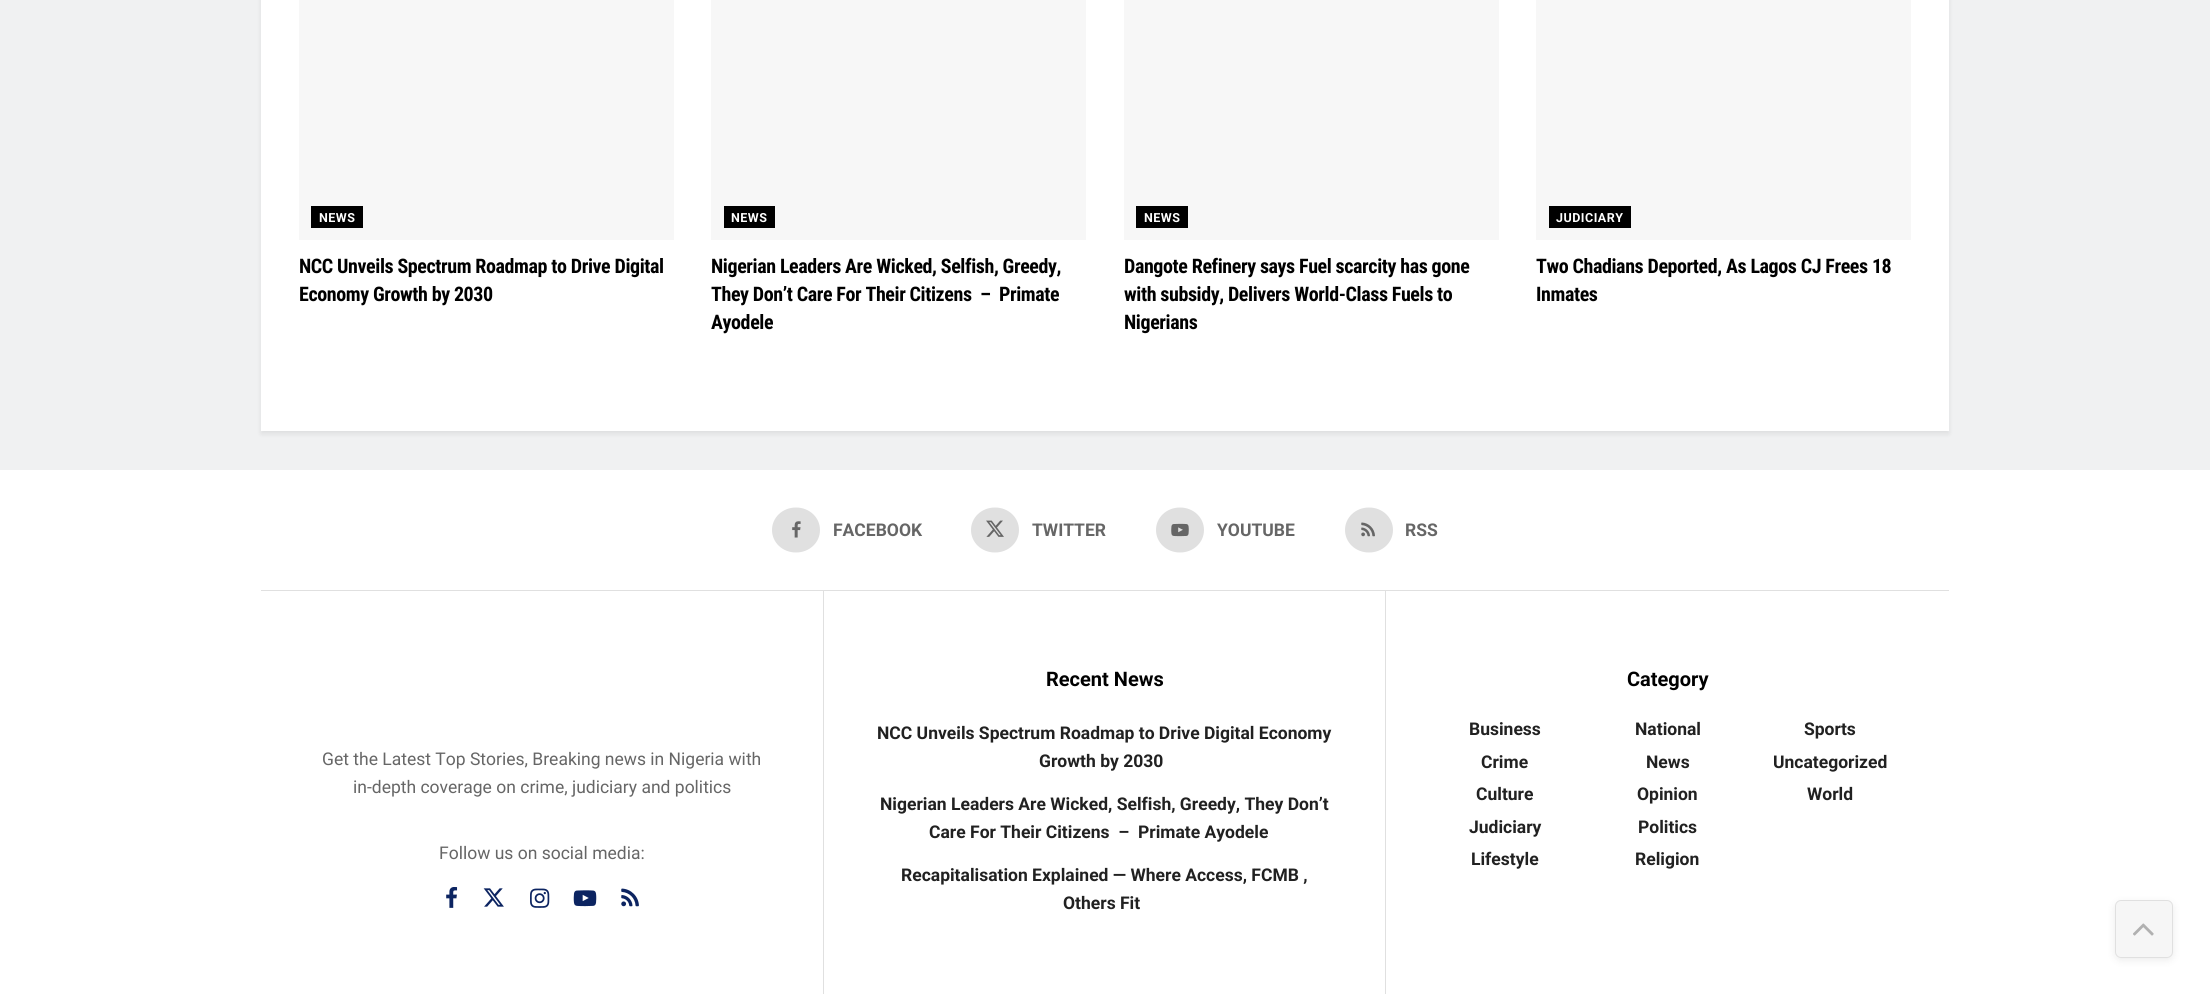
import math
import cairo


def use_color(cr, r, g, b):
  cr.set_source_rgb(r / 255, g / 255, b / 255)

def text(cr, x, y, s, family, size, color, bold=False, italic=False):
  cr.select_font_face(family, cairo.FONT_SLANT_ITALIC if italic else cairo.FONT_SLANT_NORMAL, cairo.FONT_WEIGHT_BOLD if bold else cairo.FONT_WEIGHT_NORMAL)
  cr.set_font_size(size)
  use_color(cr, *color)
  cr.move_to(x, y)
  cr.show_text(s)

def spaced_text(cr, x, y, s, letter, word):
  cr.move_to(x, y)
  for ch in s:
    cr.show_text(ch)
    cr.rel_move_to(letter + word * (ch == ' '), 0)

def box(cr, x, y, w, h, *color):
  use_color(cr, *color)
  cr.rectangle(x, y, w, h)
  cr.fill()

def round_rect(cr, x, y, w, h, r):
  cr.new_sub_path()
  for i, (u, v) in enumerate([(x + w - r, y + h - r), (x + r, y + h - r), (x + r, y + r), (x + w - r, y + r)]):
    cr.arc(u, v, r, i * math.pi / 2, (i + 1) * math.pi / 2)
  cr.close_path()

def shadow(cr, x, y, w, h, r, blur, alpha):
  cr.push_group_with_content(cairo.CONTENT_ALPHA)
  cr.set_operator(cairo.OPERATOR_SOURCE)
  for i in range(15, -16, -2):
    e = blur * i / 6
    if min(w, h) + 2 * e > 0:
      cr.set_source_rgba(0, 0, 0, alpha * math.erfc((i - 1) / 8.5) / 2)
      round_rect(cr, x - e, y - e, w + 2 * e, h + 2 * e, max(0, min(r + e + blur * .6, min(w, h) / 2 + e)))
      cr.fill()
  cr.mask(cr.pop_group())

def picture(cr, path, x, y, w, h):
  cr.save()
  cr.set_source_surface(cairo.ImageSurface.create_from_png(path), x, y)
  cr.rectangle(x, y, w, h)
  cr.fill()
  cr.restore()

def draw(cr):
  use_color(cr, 240, 241, 242)
  cr.paint()
  use_color(cr, 0, 0, 0)
  shadow(cr, 261, -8, 1688, 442, 0, 2.5, 0.08)
  box(cr, 261, 0, 1688, 431, 255, 255, 255)
  box(cr, 299, 0, 375, 240, 247, 247, 247)
  box(cr, 311, 206, 52, 22, 0, 0, 0)
  box(cr, 711, 0, 375, 240, 247, 247, 247)
  box(cr, 724, 206, 51, 22, 0, 0, 0)
  box(cr, 1124, 0, 375, 240, 247, 247, 247)
  box(cr, 1136, 206, 52, 22, 0, 0, 0)
  box(cr, 1536, 0, 375, 240, 247, 247, 247)
  box(cr, 1549, 206, 82, 22, 0, 0, 0)
  box(cr, 0, 470, 2210, 524, 255, 255, 255)
  box(cr, 261, 590, 1688, 1, 224, 224, 224)
  cr.new_path()
  cr.move_to(796, 507.5)
  cr.curve_to(809.5, 507.5, 820, 517.5, 820, 530)
  cr.curve_to(820, 542.5, 809.5, 552.5, 796, 552.5)
  cr.curve_to(782.5, 552.5, 772, 542.5, 772, 530)
  cr.curve_to(772, 517.5, 782.5, 507.5, 796, 507.5)
  cr.close_path()
  cr.fill()
  picture(cr, "img_01.png", 792, 521, 9, 17)
  cr.new_path()
  cr.move_to(995, 507.5)
  cr.curve_to(1008.5, 507.5, 1019, 517.5, 1019, 530)
  cr.curve_to(1019, 542.5, 1008.5, 552.5, 995, 552.5)
  cr.curve_to(981.5, 552.5, 971, 542.5, 971, 530)
  cr.curve_to(971, 517.5, 981.5, 507.5, 995, 507.5)
  cr.close_path()
  cr.fill()
  picture(cr, "img_02.png", 986, 520, 18, 17)
  cr.new_path()
  cr.move_to(1180, 507.5)
  cr.curve_to(1193.5, 507.5, 1204, 517.5, 1204, 530)
  cr.curve_to(1204, 542.5, 1193.5, 552.5, 1180, 552.5)
  cr.curve_to(1166.5, 552.5, 1156, 542.5, 1156, 530)
  cr.curve_to(1156, 517.5, 1166.5, 507.5, 1180, 507.5)
  cr.close_path()
  cr.fill()
  picture(cr, "img_03.png", 1171, 523, 18, 14)
  cr.new_path()
  cr.move_to(1369, 507.5)
  cr.curve_to(1382.5, 507.5, 1393, 517.5, 1393, 530)
  cr.curve_to(1393, 542.5, 1382.5, 552.5, 1369, 552.5)
  cr.curve_to(1355.5, 552.5, 1345, 542.5, 1345, 530)
  cr.curve_to(1345, 517.5, 1355.5, 507.5, 1369, 507.5)
  cr.close_path()
  cr.fill()
  picture(cr, "img_04.png", 1361, 522, 14, 15)
  box(cr, 823, 591, 1, 403, 224, 224, 224)
  picture(cr, "img_05.png", 446, 887, 12, 21)
  picture(cr, "img_06.png", 483, 888, 21, 19)
  picture(cr, "img_07.png", 530, 888, 20, 20)
  picture(cr, "img_08.png", 573, 890, 24, 17)
  picture(cr, "img_09.png", 621, 888, 18, 19)
  box(cr, 1385, 591, 1, 403, 224, 224, 224)
  cr.save()
  cr.set_fill_rule(cairo.FILL_RULE_EVEN_ODD)
  cr.new_path()
  cr.move_to(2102, 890)
  cr.line_to(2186, 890)
  cr.line_to(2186, 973)
  cr.line_to(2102, 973)
  cr.close_path()
  cr.move_to(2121, 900)
  cr.line_to(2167, 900)
  cr.curve_to(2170.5, 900, 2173, 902.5, 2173, 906)
  cr.line_to(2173, 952)
  cr.curve_to(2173, 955.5, 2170.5, 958, 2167, 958)
  cr.line_to(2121, 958)
  cr.curve_to(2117.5, 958, 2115, 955.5, 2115, 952)
  cr.line_to(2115, 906)
  cr.curve_to(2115, 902.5, 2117.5, 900, 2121, 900)
  cr.close_path()
  cr.clip()
  use_color(cr, 51, 51, 51)
  shadow(cr, 2115, 903, 58, 57, 6, 4, 0.1)
  cr.restore()
  cr.set_source_rgba(0.769, 0.769, 0.769, 0.15)
  round_rect(cr, 2115, 900, 58, 58, 6)
  cr.fill()
  round_rect(cr, 2115.5, 900.5, 57, 57, 5.5)
  cr.set_source_rgba(0.2, 0.2, 0.2, 0.11)
  cr.set_line_width(1)
  cr.stroke()
  picture(cr, "img_10.png", 2133, 923, 21, 13)
  cr.select_font_face("Roboto", cairo.FONT_SLANT_NORMAL, cairo.FONT_WEIGHT_BOLD)
  cr.set_font_size(12.5)
  use_color(cr, 255, 255, 255)
  spaced_text(cr, 319, 222, "NEWS", 0.5, 0)
  cr.select_font_face("Roboto Condensed", cairo.FONT_SLANT_NORMAL, cairo.FONT_WEIGHT_BOLD)
  cr.set_font_size(20)
  use_color(cr, 0, 0, 0)
  spaced_text(cr, 299, 273, "NCC Unveils Spectrum Roadmap to Drive Digital", -0.4, 0)
  spaced_text(cr, 299, 301, "Economy Growth by 2030", -0.4, 0)
  cr.select_font_face("Roboto", cairo.FONT_SLANT_NORMAL, cairo.FONT_WEIGHT_BOLD)
  cr.set_font_size(12.5)
  use_color(cr, 255, 255, 255)
  spaced_text(cr, 731, 222, "NEWS", 0.5, 0)
  cr.select_font_face("Roboto Condensed", cairo.FONT_SLANT_NORMAL, cairo.FONT_WEIGHT_BOLD)
  cr.set_font_size(20)
  use_color(cr, 0, 0, 0)
  spaced_text(cr, 711, 273, "Nigerian Leaders Are Wicked, Selfish, Greedy,", -0.4, 0)
  spaced_text(cr, 711, 301, "They Don’t Care For Their Citizens  –  Primate", -0.4, 0)
  spaced_text(cr, 711, 329, "Ayodele", -0.4, 0)
  cr.select_font_face("Roboto", cairo.FONT_SLANT_NORMAL, cairo.FONT_WEIGHT_BOLD)
  cr.set_font_size(12.5)
  use_color(cr, 255, 255, 255)
  spaced_text(cr, 1144, 222, "NEWS", 0.5, 0)
  cr.select_font_face("Roboto Condensed", cairo.FONT_SLANT_NORMAL, cairo.FONT_WEIGHT_BOLD)
  cr.set_font_size(20)
  use_color(cr, 0, 0, 0)
  spaced_text(cr, 1124, 273, "Dangote Refinery says Fuel scarcity has gone", -0.4, 0)
  spaced_text(cr, 1124, 301, "with subsidy, Delivers World-Class Fuels to", -0.4, 0)
  spaced_text(cr, 1124, 329, "Nigerians", -0.4, 0)
  cr.select_font_face("Roboto", cairo.FONT_SLANT_NORMAL, cairo.FONT_WEIGHT_BOLD)
  cr.set_font_size(12.5)
  use_color(cr, 255, 255, 255)
  spaced_text(cr, 1556, 222, "JUDICIARY", 0.5, 0)
  cr.select_font_face("Roboto Condensed", cairo.FONT_SLANT_NORMAL, cairo.FONT_WEIGHT_BOLD)
  cr.set_font_size(20)
  use_color(cr, 0, 0, 0)
  spaced_text(cr, 1536, 273, "Two Chadians Deported, As Lagos CJ Frees 18", -0.4, 0)
  spaced_text(cr, 1536, 301, "Inmates", -0.4, 0)
  text(cr, 833, 536, "FACEBOOK", "Roboto", 17.5, (102, 102, 102), bold=True)
  text(cr, 1032, 536, "TWITTER", "Roboto", 17.5, (102, 102, 102), bold=True)
  text(cr, 1217, 536, "YOUTUBE", "Roboto", 17.5, (102, 102, 102), bold=True)
  text(cr, 1405, 536, "RSS", "Roboto", 17.5, (102, 102, 102), bold=True)
  text(cr, 322, 765, "Get the Latest Top Stories, Breaking news in Nigeria with", "Roboto", 17.5, (102, 102, 102))
  text(cr, 353, 793, "in-depth coverage on crime, judiciary and politics", "Roboto", 17.5, (102, 102, 102))
  text(cr, 439, 859, "Follow us on social media:", "Roboto", 17.5, (102, 102, 102))
  text(cr, 1046, 686, "Recent News", "Roboto", 20, (0, 0, 0), bold=True)
  text(cr, 877, 739, "NCC Unveils Spectrum Roadmap to Drive Digital Economy", "Roboto", 17.5, (33, 33, 33), bold=True)
  text(cr, 1039, 767, "Growth by 2030", "Roboto", 17.5, (33, 33, 33), bold=True)
  text(cr, 880, 810, "Nigerian Leaders Are Wicked, Selfish, Greedy, They Don’t", "Roboto", 17.5, (33, 33, 33), bold=True)
  text(cr, 929, 838, "Care For Their Citizens  –  Primate Ayodele", "Roboto", 17.5, (33, 33, 33), bold=True)
  text(cr, 901, 881, "Recapitalisation Explained — Where Access, FCMB ,", "Roboto", 17.5, (33, 33, 33), bold=True)
  text(cr, 1063, 909, "Others Fit", "Roboto", 17.5, (33, 33, 33), bold=True)
  text(cr, 1627, 686, "Category", "Roboto", 20, (0, 0, 0), bold=True)
  text(cr, 1469, 735, "Business", "Roboto", 17.5, (33, 33, 33), bold=True)
  text(cr, 1635, 735, "National", "Roboto", 17.5, (33, 33, 33), bold=True)
  text(cr, 1804, 735, "Sports", "Roboto", 17.5, (33, 33, 33), bold=True)
  text(cr, 1481, 768, "Crime", "Roboto", 17.5, (33, 33, 33), bold=True)
  text(cr, 1646, 768, "News", "Roboto", 17.5, (33, 33, 33), bold=True)
  text(cr, 1773, 768, "Uncategorized", "Roboto", 17.5, (33, 33, 33), bold=True)
  text(cr, 1476, 800, "Culture", "Roboto", 17.5, (33, 33, 33), bold=True)
  text(cr, 1637, 800, "Opinion", "Roboto", 17.5, (33, 33, 33), bold=True)
  text(cr, 1807, 800, "World", "Roboto", 17.5, (33, 33, 33), bold=True)
  text(cr, 1469, 833, "Judiciary", "Roboto", 17.5, (33, 33, 33), bold=True)
  text(cr, 1638, 833, "Politics", "Roboto", 17.5, (33, 33, 33), bold=True)
  text(cr, 1471, 865, "Lifestyle", "Roboto", 17.5, (33, 33, 33), bold=True)
  text(cr, 1635, 865, "Religion", "Roboto", 17.5, (33, 33, 33), bold=True)


surface = cairo.ImageSurface(cairo.FORMAT_RGB24, 2210, 994)
cr = cairo.Context(surface)
options = cairo.FontOptions()
options.set_hint_metrics(cairo.HINT_METRICS_OFF)
options.set_hint_style(cairo.HINT_STYLE_NONE)
cr.set_font_options(options)
cr.set_miter_limit(4)
draw(cr)
surface.write_to_png("out.png")
